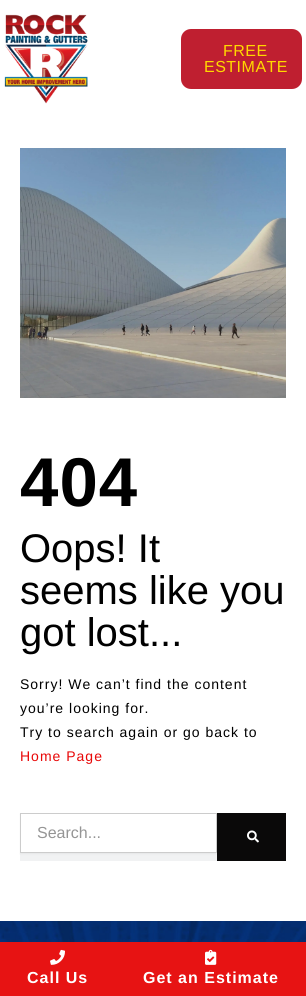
import math
import cairo


def use_color(cr, r, g, b):
  cr.set_source_rgb(r / 255, g / 255, b / 255)

def text(cr, x, y, s, family, size, color, bold=False, italic=False):
  cr.select_font_face(family, cairo.FONT_SLANT_ITALIC if italic else cairo.FONT_SLANT_NORMAL, cairo.FONT_WEIGHT_BOLD if bold else cairo.FONT_WEIGHT_NORMAL)
  cr.set_font_size(size)
  use_color(cr, *color)
  cr.move_to(x, y)
  cr.show_text(s)

def spaced_text(cr, x, y, s, letter, word):
  cr.move_to(x, y)
  for ch in s:
    cr.show_text(ch)
    cr.rel_move_to(letter + word * (ch == ' '), 0)

def box(cr, x, y, w, h, *color):
  use_color(cr, *color)
  cr.rectangle(x, y, w, h)
  cr.fill()

def round_rect(cr, x, y, w, h, r):
  cr.new_sub_path()
  for i, (u, v) in enumerate([(x + w - r, y + h - r), (x + r, y + h - r), (x + r, y + r), (x + w - r, y + r)]):
    cr.arc(u, v, r, i * math.pi / 2, (i + 1) * math.pi / 2)
  cr.close_path()

def shadow(cr, x, y, w, h, r, blur, alpha):
  cr.push_group_with_content(cairo.CONTENT_ALPHA)
  cr.set_operator(cairo.OPERATOR_SOURCE)
  for i in range(15, -16, -2):
    e = blur * i / 6
    if min(w, h) + 2 * e > 0:
      cr.set_source_rgba(0, 0, 0, alpha * math.erfc((i - 1) / 8.5) / 2)
      round_rect(cr, x - e, y - e, w + 2 * e, h + 2 * e, max(0, min(r + e + blur * .6, min(w, h) / 2 + e)))
      cr.fill()
  cr.mask(cr.pop_group())

def picture(cr, path, x, y, w, h):
  cr.save()
  cr.set_source_surface(cairo.ImageSurface.create_from_png(path), x, y)
  cr.rectangle(x, y, w, h)
  cr.fill()
  cr.restore()

def draw(cr):
  use_color(cr, 255, 255, 255)
  cr.paint()
  picture(cr, "img_01.png", 4, 14, 84, 90)
  use_color(cr, 191, 31, 48)
  round_rect(cr, 181, 29, 121, 60, 10)
  cr.fill()
  picture(cr, "img_02.png", 20, 148, 266, 250)
  box(cr, 20, 853, 197, 8, 241, 242, 243)
  use_color(cr, 0, 0, 0)
  shadow(cr, 20, 814, 197, 40, 0, 1, 0.05)
  use_color(cr, 255, 255, 255)
  cr.rectangle(20.5, 813.5, 196, 39)
  cr.fill_preserve()
  use_color(cr, 204, 204, 204)
  cr.set_line_width(1)
  cr.stroke()
  box(cr, 217, 813, 69, 48, 10, 9, 9)
  picture(cr, "img_03.png", 247, 830, 12, 13)
  picture(cr, "img_04.png", 0, 921, 306, 21)
  box(cr, 0, 942, 306, 54, 231, 19, 19)
  picture(cr, "img_05.png", 50, 949, 15, 16)
  picture(cr, "img_06.png", 205, 949, 12, 16)
  cr.select_font_face("Liberation Sans")
  cr.set_font_size(16)
  use_color(cr, 255, 216, 0)
  spaced_text(cr, 223, 56, "FREE", 0.5, 0)
  spaced_text(cr, 204, 72, "ESTIMATE", 0.5, 0)
  cr.select_font_face("Liberation Sans", cairo.FONT_SLANT_NORMAL, cairo.FONT_WEIGHT_BOLD)
  cr.set_font_size(69)
  use_color(cr, 0, 0, 0)
  spaced_text(cr, 20, 506, "404", 1, 0)
  text(cr, 20, 562, "Oops! It", "Liberation Sans", 40, (0, 0, 0))
  text(cr, 20, 604, "seems like you", "Liberation Sans", 40, (0, 0, 0))
  text(cr, 20, 646, "got lost...", "Liberation Sans", 40, (0, 0, 0))
  cr.set_font_size(14)
  spaced_text(cr, 20, 689, "Sorry! We can’t find the content", 1, 0)
  spaced_text(cr, 20, 713, "you’re looking for.", 1, 0)
  spaced_text(cr, 20, 737, "Try to search again or go back to", 1, 0)
  use_color(cr, 232, 7, 7)
  spaced_text(cr, 20, 761, "Home Page", 1, 0)
  text(cr, 37, 838, "Search...", "Liberation Sans", 16, (149, 149, 149))
  cr.select_font_face("Liberation Sans", cairo.FONT_SLANT_NORMAL, cairo.FONT_WEIGHT_BOLD)
  use_color(cr, 255, 255, 255)
  spaced_text(cr, 27, 983, "Call Us", 1, 0)
  spaced_text(cr, 143, 983, "Get an Estimate", 1, 0)


surface = cairo.ImageSurface(cairo.FORMAT_RGB24, 306, 996)
cr = cairo.Context(surface)
options = cairo.FontOptions()
options.set_hint_metrics(cairo.HINT_METRICS_OFF)
options.set_hint_style(cairo.HINT_STYLE_NONE)
cr.set_font_options(options)
cr.set_miter_limit(4)
draw(cr)
surface.write_to_png("out.png")
